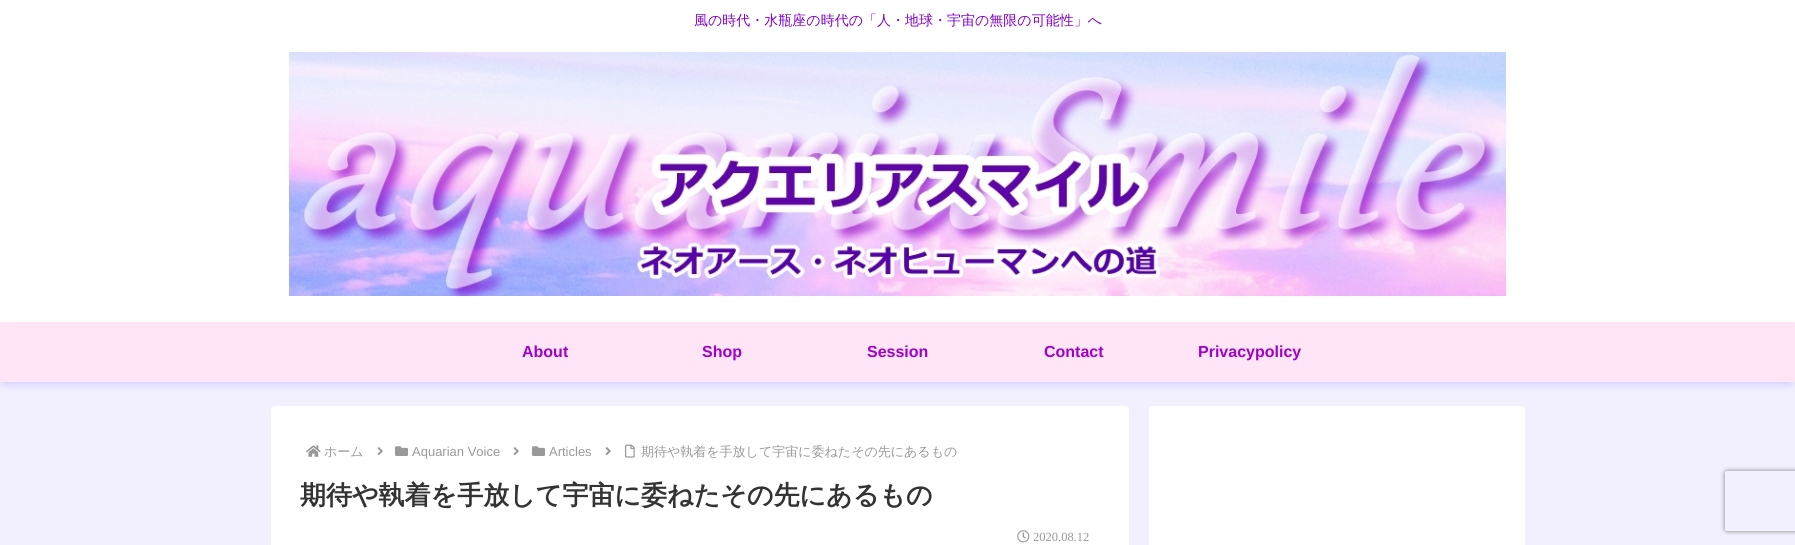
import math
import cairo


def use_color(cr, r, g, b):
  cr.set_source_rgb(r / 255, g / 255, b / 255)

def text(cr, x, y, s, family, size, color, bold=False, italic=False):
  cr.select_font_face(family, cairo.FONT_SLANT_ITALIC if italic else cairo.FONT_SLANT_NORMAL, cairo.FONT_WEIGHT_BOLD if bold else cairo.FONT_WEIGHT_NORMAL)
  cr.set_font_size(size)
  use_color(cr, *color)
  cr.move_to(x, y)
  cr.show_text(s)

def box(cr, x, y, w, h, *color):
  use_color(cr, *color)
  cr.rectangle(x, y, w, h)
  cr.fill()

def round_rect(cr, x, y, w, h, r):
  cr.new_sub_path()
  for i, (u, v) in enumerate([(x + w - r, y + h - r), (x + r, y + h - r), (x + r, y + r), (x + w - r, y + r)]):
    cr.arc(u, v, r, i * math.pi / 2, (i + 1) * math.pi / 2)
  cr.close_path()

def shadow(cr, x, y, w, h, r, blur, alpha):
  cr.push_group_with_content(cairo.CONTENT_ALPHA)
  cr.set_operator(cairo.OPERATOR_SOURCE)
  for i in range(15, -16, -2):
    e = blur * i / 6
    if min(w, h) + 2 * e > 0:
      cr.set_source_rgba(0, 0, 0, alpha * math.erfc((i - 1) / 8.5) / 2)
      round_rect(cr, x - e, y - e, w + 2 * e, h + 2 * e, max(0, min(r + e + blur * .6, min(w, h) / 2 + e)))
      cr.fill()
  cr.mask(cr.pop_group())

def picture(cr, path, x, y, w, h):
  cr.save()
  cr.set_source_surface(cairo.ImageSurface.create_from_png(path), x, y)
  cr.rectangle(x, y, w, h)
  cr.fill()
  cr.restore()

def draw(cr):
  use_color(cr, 242, 240, 255)
  cr.paint()
  box(cr, 0, 0, 1795, 322, 255, 255, 255)
  picture(cr, "img_01.png", 289, 52, 1217, 244)
  use_color(cr, 199, 192, 255)
  shadow(cr, 4, 331, 1787, 52, 0, 5, 1)
  box(cr, 0, 322, 1795, 60, 255, 229, 246)
  use_color(cr, 255, 255, 255)
  round_rect(cr, 271, 406, 858, 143, 4)
  cr.fill()
  picture(cr, "img_02.png", 306, 445, 15, 12)
  picture(cr, "img_03.png", 377, 447, 6, 9)
  picture(cr, "img_04.png", 395, 446, 13, 10)
  picture(cr, "img_03.png", 513, 447, 6, 9)
  picture(cr, "img_04.png", 532, 446, 13, 10)
  picture(cr, "img_03.png", 605, 447, 6, 9)
  picture(cr, "img_05.png", 625, 444, 10, 14)
  picture(cr, "img_06.png", 1017, 530, 13, 13)
  round_rect(cr, 1149, 406, 376, 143, 4)
  cr.fill()
  cr.save()
  cr.set_fill_rule(cairo.FILL_RULE_EVEN_ODD)
  cr.new_path()
  cr.move_to(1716, 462)
  cr.line_to(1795, 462)
  cr.line_to(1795, 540)
  cr.line_to(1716, 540)
  cr.close_path()
  cr.move_to(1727, 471)
  cr.line_to(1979, 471)
  cr.curve_to(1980, 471, 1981, 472, 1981, 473)
  cr.line_to(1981, 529)
  cr.curve_to(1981, 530, 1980, 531, 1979, 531)
  cr.line_to(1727, 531)
  cr.curve_to(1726, 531, 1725, 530, 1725, 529)
  cr.line_to(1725, 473)
  cr.curve_to(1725, 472, 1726, 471, 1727, 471)
  cr.close_path()
  cr.clip()
  use_color(cr, 128, 128, 128)
  shadow(cr, 1725, 471, 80, 60, 2, 2.5, 1)
  cr.restore()
  text(cr, 694, 25, "風の時代・水瓶座の時代の「人・地球・宇宙の無限の可能性」へ", "WenQuanYi Zen Hei Medium", 14, (127, 0, 201))
  text(cr, 522, 357, "About", "Liberation Sans", 16, (161, 0, 201), bold=True)
  text(cr, 702, 357, "Shop", "Liberation Sans", 16, (161, 0, 201), bold=True)
  text(cr, 867, 357, "Session", "Liberation Sans", 16, (161, 0, 201), bold=True)
  text(cr, 1044, 357, "Contact", "Liberation Sans", 16, (161, 0, 201), bold=True)
  text(cr, 1198, 357, "Privacypolicy", "Liberation Sans", 16, (161, 0, 201), bold=True)
  text(cr, 324, 456, "ホーム", "WenQuanYi Zen Hei Medium", 13, (153, 153, 153))
  text(cr, 412, 456, "Aquarian Voice", "Liberation Sans", 13, (153, 153, 153))
  text(cr, 549, 456, "Articles", "Liberation Sans", 13, (153, 153, 153))
  text(cr, 641, 456, "期待や執着を手放して宇宙に委ねたその先にあるもの", "WenQuanYi Zen Hei Medium", 13, (153, 153, 153))
  text(cr, 300, 504, "期待や執着を手放して宇宙に委ねたその先にあるもの", "WenQuanYi Zen Hei", 26, (51, 51, 51), bold=True)
  text(cr, 1033, 541, "2020.08.12", "Liberation Serif", 12.5, (153, 153, 153))


surface = cairo.ImageSurface(cairo.FORMAT_RGB24, 1795, 545)
cr = cairo.Context(surface)
options = cairo.FontOptions()
options.set_hint_metrics(cairo.HINT_METRICS_OFF)
options.set_hint_style(cairo.HINT_STYLE_NONE)
cr.set_font_options(options)
cr.set_miter_limit(4)
draw(cr)
surface.write_to_png("out.png")
